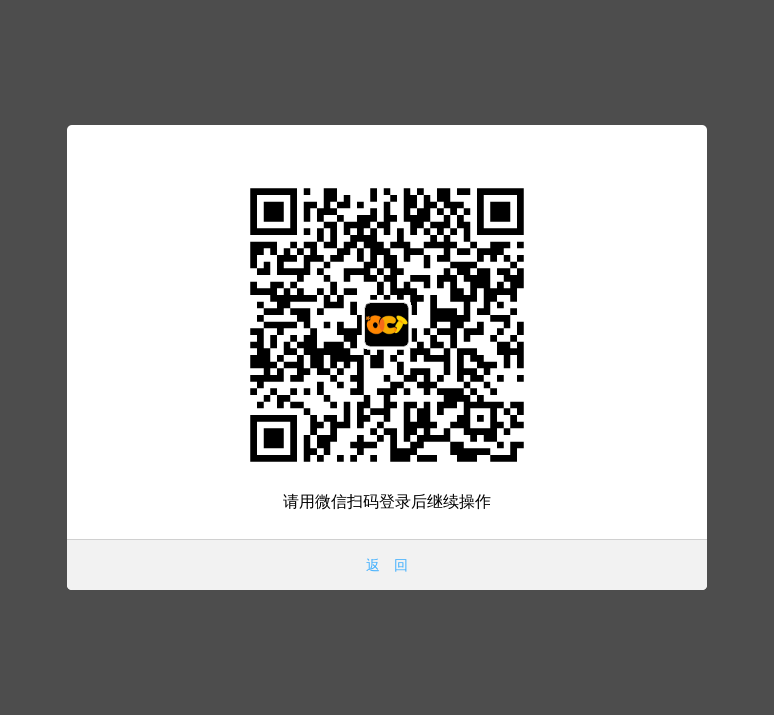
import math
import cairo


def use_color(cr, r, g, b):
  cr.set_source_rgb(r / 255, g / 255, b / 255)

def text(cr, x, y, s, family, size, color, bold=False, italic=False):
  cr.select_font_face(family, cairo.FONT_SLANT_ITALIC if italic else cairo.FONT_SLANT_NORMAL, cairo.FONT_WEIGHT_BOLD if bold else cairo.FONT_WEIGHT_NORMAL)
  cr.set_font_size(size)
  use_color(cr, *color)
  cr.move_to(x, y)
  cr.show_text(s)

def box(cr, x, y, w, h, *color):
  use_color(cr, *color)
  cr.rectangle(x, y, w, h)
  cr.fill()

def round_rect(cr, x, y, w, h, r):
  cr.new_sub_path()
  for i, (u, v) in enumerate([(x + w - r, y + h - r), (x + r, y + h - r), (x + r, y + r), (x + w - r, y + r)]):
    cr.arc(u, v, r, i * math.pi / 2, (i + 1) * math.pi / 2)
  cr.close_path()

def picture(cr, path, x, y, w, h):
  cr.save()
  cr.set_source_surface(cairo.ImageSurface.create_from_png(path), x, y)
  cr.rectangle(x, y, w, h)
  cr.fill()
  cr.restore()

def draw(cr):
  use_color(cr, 77, 77, 77)
  cr.paint()
  use_color(cr, 255, 255, 255)
  round_rect(cr, 67, 125, 640, 465, 5)
  cr.fill()
  picture(cr, "img_01.png", 250, 188, 274, 274)
  use_color(cr, 242, 242, 242)
  cr.new_path()
  cr.move_to(67, 539)
  cr.line_to(707, 539)
  cr.line_to(707, 585)
  cr.curve_to(707, 588, 705, 590, 702, 590)
  cr.line_to(72, 590)
  cr.curve_to(69, 590, 67, 588, 67, 585)
  cr.close_path()
  cr.fill()
  box(cr, 67, 539, 640, 1, 208, 208, 208)
  text(cr, 283, 507, "请用微信扫码登录后继续操作", "WenQuanYi Zen Hei Medium", 16, (0, 0, 0))
  text(cr, 366, 570, "返　回", "WenQuanYi Zen Hei Medium", 14, (64, 175, 254))


surface = cairo.ImageSurface(cairo.FORMAT_RGB24, 774, 715)
cr = cairo.Context(surface)
options = cairo.FontOptions()
options.set_hint_metrics(cairo.HINT_METRICS_OFF)
options.set_hint_style(cairo.HINT_STYLE_NONE)
cr.set_font_options(options)
cr.set_miter_limit(4)
draw(cr)
surface.write_to_png("out.png")
